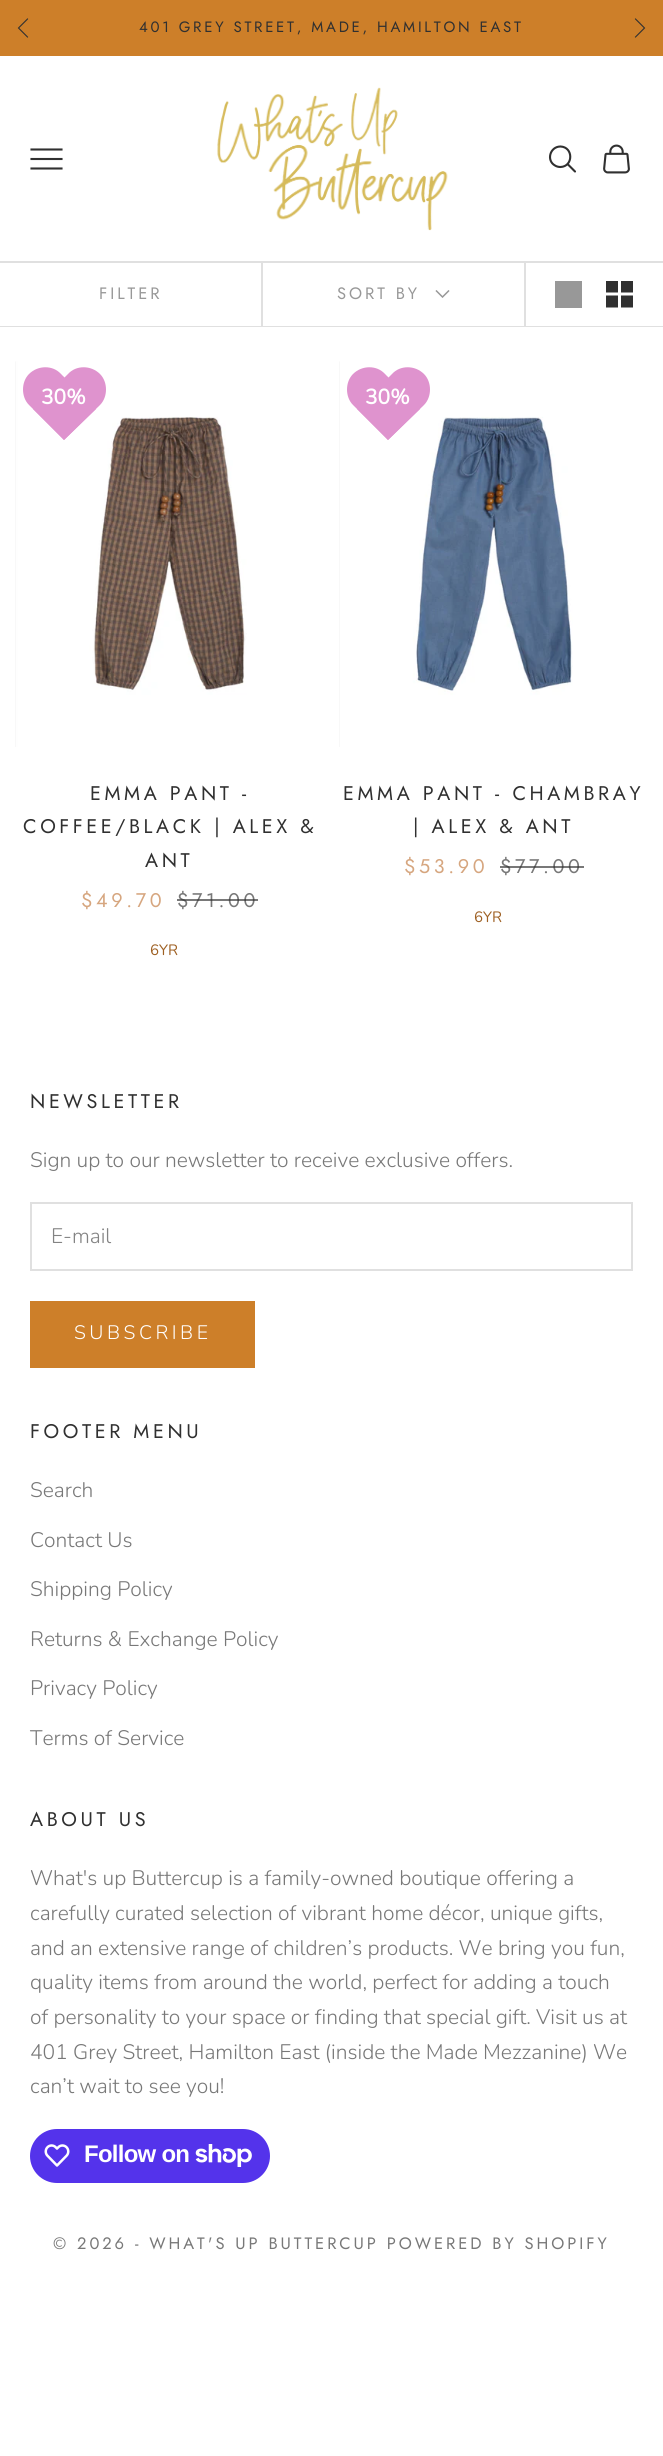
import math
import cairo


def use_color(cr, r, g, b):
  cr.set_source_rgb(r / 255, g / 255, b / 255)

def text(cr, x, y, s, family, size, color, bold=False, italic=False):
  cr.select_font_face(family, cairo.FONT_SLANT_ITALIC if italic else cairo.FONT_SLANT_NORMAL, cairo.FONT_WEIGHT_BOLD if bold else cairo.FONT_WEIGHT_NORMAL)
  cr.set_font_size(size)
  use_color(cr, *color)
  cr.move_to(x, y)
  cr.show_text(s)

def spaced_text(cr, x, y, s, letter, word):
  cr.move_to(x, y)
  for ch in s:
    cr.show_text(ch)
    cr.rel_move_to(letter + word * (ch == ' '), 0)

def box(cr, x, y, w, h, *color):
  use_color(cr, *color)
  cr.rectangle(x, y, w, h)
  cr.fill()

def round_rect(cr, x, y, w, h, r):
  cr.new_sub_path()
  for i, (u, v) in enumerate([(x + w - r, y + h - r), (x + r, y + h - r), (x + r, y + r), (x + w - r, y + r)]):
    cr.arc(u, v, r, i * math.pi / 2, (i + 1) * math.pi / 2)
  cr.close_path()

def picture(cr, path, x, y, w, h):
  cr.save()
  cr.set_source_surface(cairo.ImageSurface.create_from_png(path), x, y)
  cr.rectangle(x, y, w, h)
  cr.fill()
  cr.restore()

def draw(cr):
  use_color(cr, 255, 255, 255)
  cr.paint()
  box(cr, 0, 0, 663, 56, 205, 127, 41)
  cr.new_path()
  cr.move_to(27.5, 19)
  cr.line_to(18.5, 28)
  cr.line_to(27.5, 37)
  use_color(cr, 48, 48, 48)
  cr.set_line_width(1.1)
  cr.set_line_cap(cairo.LINE_CAP_SQUARE)
  cr.stroke()
  cr.new_path()
  cr.move_to(635.5, 37)
  cr.line_to(644.5, 28)
  cr.line_to(635.5, 19)
  cr.stroke()
  box(cr, 0, 261, 663, 2, 224, 224, 224)
  cr.new_path()
  cr.move_to(31.5, 168.5)
  cr.line_to(61.5, 168.5)
  cr.move_to(31.5, 159)
  cr.line_to(61.5, 159)
  cr.move_to(31.5, 149.5)
  cr.line_to(61.5, 149.5)
  use_color(cr, 48, 48, 48)
  cr.set_line_width(2.1)
  cr.stroke()
  picture(cr, "img_01.png", 217, 87, 231, 144)
  cr.new_path()
  cr.move_to(560.5, 146.5)
  cr.curve_to(550, 146.5, 546, 160.5, 555, 165.5)
  cr.curve_to(556.5, 166.5, 558.5, 167, 560.5, 167)
  cr.curve_to(573.5, 166.5, 573.5, 147, 560.5, 146.5)
  cr.close_path()
  cr.set_line_cap(cairo.LINE_CAP_BUTT)
  cr.stroke()
  cr.new_path()
  cr.move_to(568, 164.5)
  cr.line_to(575, 171.5)
  cr.set_line_cap(cairo.LINE_CAP_ROUND)
  cr.stroke()
  picture(cr, "img_02.png", 603, 144, 27, 30)
  box(cr, 0, 326, 663, 1, 224, 224, 224)
  box(cr, 261, 263, 2, 63, 224, 224, 224)
  cr.new_path()
  cr.move_to(436.5, 291)
  cr.line_to(442.5, 297)
  cr.line_to(448.5, 291)
  use_color(cr, 152, 152, 152)
  cr.set_line_width(1.5)
  cr.set_line_cap(cairo.LINE_CAP_SQUARE)
  cr.stroke()
  box(cr, 524, 263, 2, 63, 224, 224, 224)
  box(cr, 555, 281, 27, 27, 152, 152, 152)
  picture(cr, "img_03.png", 606, 281, 27, 27)
  picture(cr, "img_04.png", 15, 361, 232, 386)
  use_color(cr, 223, 147, 206)
  cr.new_path()
  cr.move_to(29, 374)
  cr.curve_to(38, 365, 53, 365, 61, 374)
  cr.line_to(96, 409)
  cr.line_to(64, 440)
  cr.line_to(29, 405)
  cr.curve_to(21, 397, 21, 382, 29, 374)
  cr.close_path()
  cr.fill()
  cr.new_path()
  cr.move_to(100, 374)
  cr.curve_to(108, 382, 108, 397, 100, 405)
  cr.line_to(64, 440)
  cr.line_to(33, 409)
  cr.line_to(68, 374)
  cr.curve_to(76, 365, 91, 365, 100, 374)
  cr.close_path()
  cr.fill()
  picture(cr, "img_05.png", 339, 361, 234, 386)
  cr.new_path()
  cr.move_to(353, 374)
  cr.curve_to(362, 365, 377, 365, 385, 374)
  cr.line_to(420, 409)
  cr.line_to(388, 440)
  cr.line_to(353, 405)
  cr.curve_to(345, 397, 345, 382, 353, 374)
  cr.close_path()
  cr.fill()
  cr.new_path()
  cr.move_to(424, 374)
  cr.curve_to(432, 382, 432, 397, 424, 405)
  cr.line_to(388, 440)
  cr.line_to(357, 409)
  cr.line_to(392, 374)
  cr.curve_to(400, 365, 415, 365, 424, 374)
  cr.close_path()
  cr.fill()
  cr.rectangle(31, 1203, 601, 67)
  use_color(cr, 224, 224, 224)
  cr.set_line_width(2)
  cr.set_line_cap(cairo.LINE_CAP_BUTT)
  cr.stroke()
  use_color(cr, 205, 127, 41)
  cr.rectangle(31, 1302, 223, 65)
  cr.fill_preserve()
  cr.stroke()
  use_color(cr, 84, 51, 235)
  round_rect(cr, 30, 2129, 240, 54, 27)
  cr.fill()
  picture(cr, "img_06.png", 44, 2144, 26, 23)
  picture(cr, "img_07.png", 195, 2144, 57, 23)
  cr.select_font_face("Jost")
  cr.set_font_size(15)
  use_color(cr, 48, 48, 48)
  spaced_text(cr, 139, 32, "401 GREY STREET, MADE, HAMILTON EAST", 2.7, 0)
  cr.set_font_size(16.5)
  use_color(cr, 152, 152, 152)
  spaced_text(cr, 99, 299, "FILTER", 2.95, 0)
  spaced_text(cr, 337, 299, "SORT BY", 2.95, 0)
  text(cr, 41, 404, "30%", "Nunito", 21, (255, 255, 255), bold=True)
  cr.select_font_face("Jost")
  cr.set_font_size(19.75)
  use_color(cr, 48, 48, 48)
  spaced_text(cr, 90, 800, "EMMA PANT -", 3.6, 0)
  spaced_text(cr, 23, 833, "COFFEE/BLACK | ALEX &", 3.6, 0)
  spaced_text(cr, 145, 867, "ANT", 3.6, 0)
  use_color(cr, 214, 166, 127)
  spaced_text(cr, 81, 907, "$49.70", 3.6, 0)
  use_color(cr, 120, 120, 120)
  spaced_text(cr, 177, 907, "$71.00", 3.6, 0)
  cr.set_source_rgba(0.188, 0.188, 0.188, 0.65)
  cr.rectangle(177, 899, 81, 2)
  cr.fill()
  text(cr, 150, 955, "6YR", "Nunito", 15, (158, 96, 35))
  text(cr, 365, 404, "30%", "Nunito", 21, (255, 255, 255), bold=True)
  cr.select_font_face("Jost")
  cr.set_font_size(19.75)
  use_color(cr, 48, 48, 48)
  spaced_text(cr, 343, 800, "EMMA PANT - CHAMBRAY", 3.6, 0)
  spaced_text(cr, 413, 833, "| ALEX & ANT", 3.6, 0)
  use_color(cr, 214, 166, 127)
  spaced_text(cr, 404, 873, "$53.90", 3.6, 0)
  use_color(cr, 120, 120, 120)
  spaced_text(cr, 500, 873, "$77.00", 3.6, 0)
  cr.set_source_rgba(0.188, 0.188, 0.188, 0.65)
  cr.rectangle(500, 866, 84, 2)
  cr.fill()
  text(cr, 474, 922, "6YR", "Nunito", 15, (158, 96, 35))
  cr.select_font_face("Jost")
  cr.set_font_size(19.75)
  use_color(cr, 48, 48, 48)
  spaced_text(cr, 30, 1108, "NEWSLETTER", 3.6, 0)
  text(cr, 30, 1167, "Sign up to our newsletter to receive exclusive offers.", "Nunito Light", 21, (120, 120, 120))
  text(cr, 51, 1243, "E-mail", "Nunito Light", 21, (131, 131, 131))
  cr.set_font_size(19.5)
  use_color(cr, 255, 255, 255)
  spaced_text(cr, 74, 1339, "SUBSCRIBE", 3.5, 0)
  cr.select_font_face("Jost")
  cr.set_font_size(19.75)
  use_color(cr, 48, 48, 48)
  spaced_text(cr, 30, 1438, "FOOTER MENU", 3.6, 0)
  text(cr, 30, 1497, "Search", "Nunito Light", 21, (120, 120, 120))
  text(cr, 30, 1547, "Contact Us", "Nunito Light", 21, (120, 120, 120))
  text(cr, 30, 1596, "Shipping Policy", "Nunito Light", 21, (120, 120, 120))
  text(cr, 30, 1646, "Returns & Exchange Policy", "Nunito Light", 21, (120, 120, 120))
  text(cr, 30, 1695, "Privacy Policy", "Nunito Light", 21, (120, 120, 120))
  text(cr, 30, 1745, "Terms of Service", "Nunito Light", 21, (120, 120, 120))
  cr.select_font_face("Jost")
  cr.set_font_size(19.75)
  use_color(cr, 48, 48, 48)
  spaced_text(cr, 30, 1826, "ABOUT US", 3.6, 0)
  text(cr, 30, 1885, "What's up Buttercup is a family-owned boutique offering a", "Nunito Light", 21, (120, 120, 120))
  text(cr, 30, 1920, "carefully curated selection of vibrant home décor, unique gifts,", "Nunito Light", 21, (120, 120, 120))
  text(cr, 30, 1955, "and an extensive range of children’s products. We bring you fun,", "Nunito Light", 21, (120, 120, 120))
  text(cr, 30, 1989, "quality items from around the world, perfect for adding a touch", "Nunito Light", 21, (120, 120, 120))
  text(cr, 30, 2024, "of personality to your space or finding that special gift. Visit us at", "Nunito Light", 21, (120, 120, 120))
  text(cr, 30, 2059, "401 Grey Street, Hamilton East (inside the Made Mezzanine) We", "Nunito Light", 21, (120, 120, 120))
  text(cr, 30, 2093, "can’t wait to see you!", "Nunito Light", 21, (120, 120, 120))
  cr.select_font_face("Liberation Sans", cairo.FONT_SLANT_NORMAL, cairo.FONT_WEIGHT_BOLD)
  cr.set_font_size(24)
  use_color(cr, 255, 255, 255)
  spaced_text(cr, 84, 2162, "Follow on", -0.75, 0)
  cr.select_font_face("Jost")
  cr.set_font_size(16.5)
  use_color(cr, 120, 120, 120)
  spaced_text(cr, 53, 2249, "© 2026 - WHAT'S UP BUTTERCUP POWERED BY SHOPIFY", 2.95, 0)


surface = cairo.ImageSurface(cairo.FORMAT_RGB24, 663, 2456)
cr = cairo.Context(surface)
options = cairo.FontOptions()
options.set_hint_metrics(cairo.HINT_METRICS_OFF)
options.set_hint_style(cairo.HINT_STYLE_NONE)
cr.set_font_options(options)
cr.set_miter_limit(4)
draw(cr)
surface.write_to_png("out.png")
